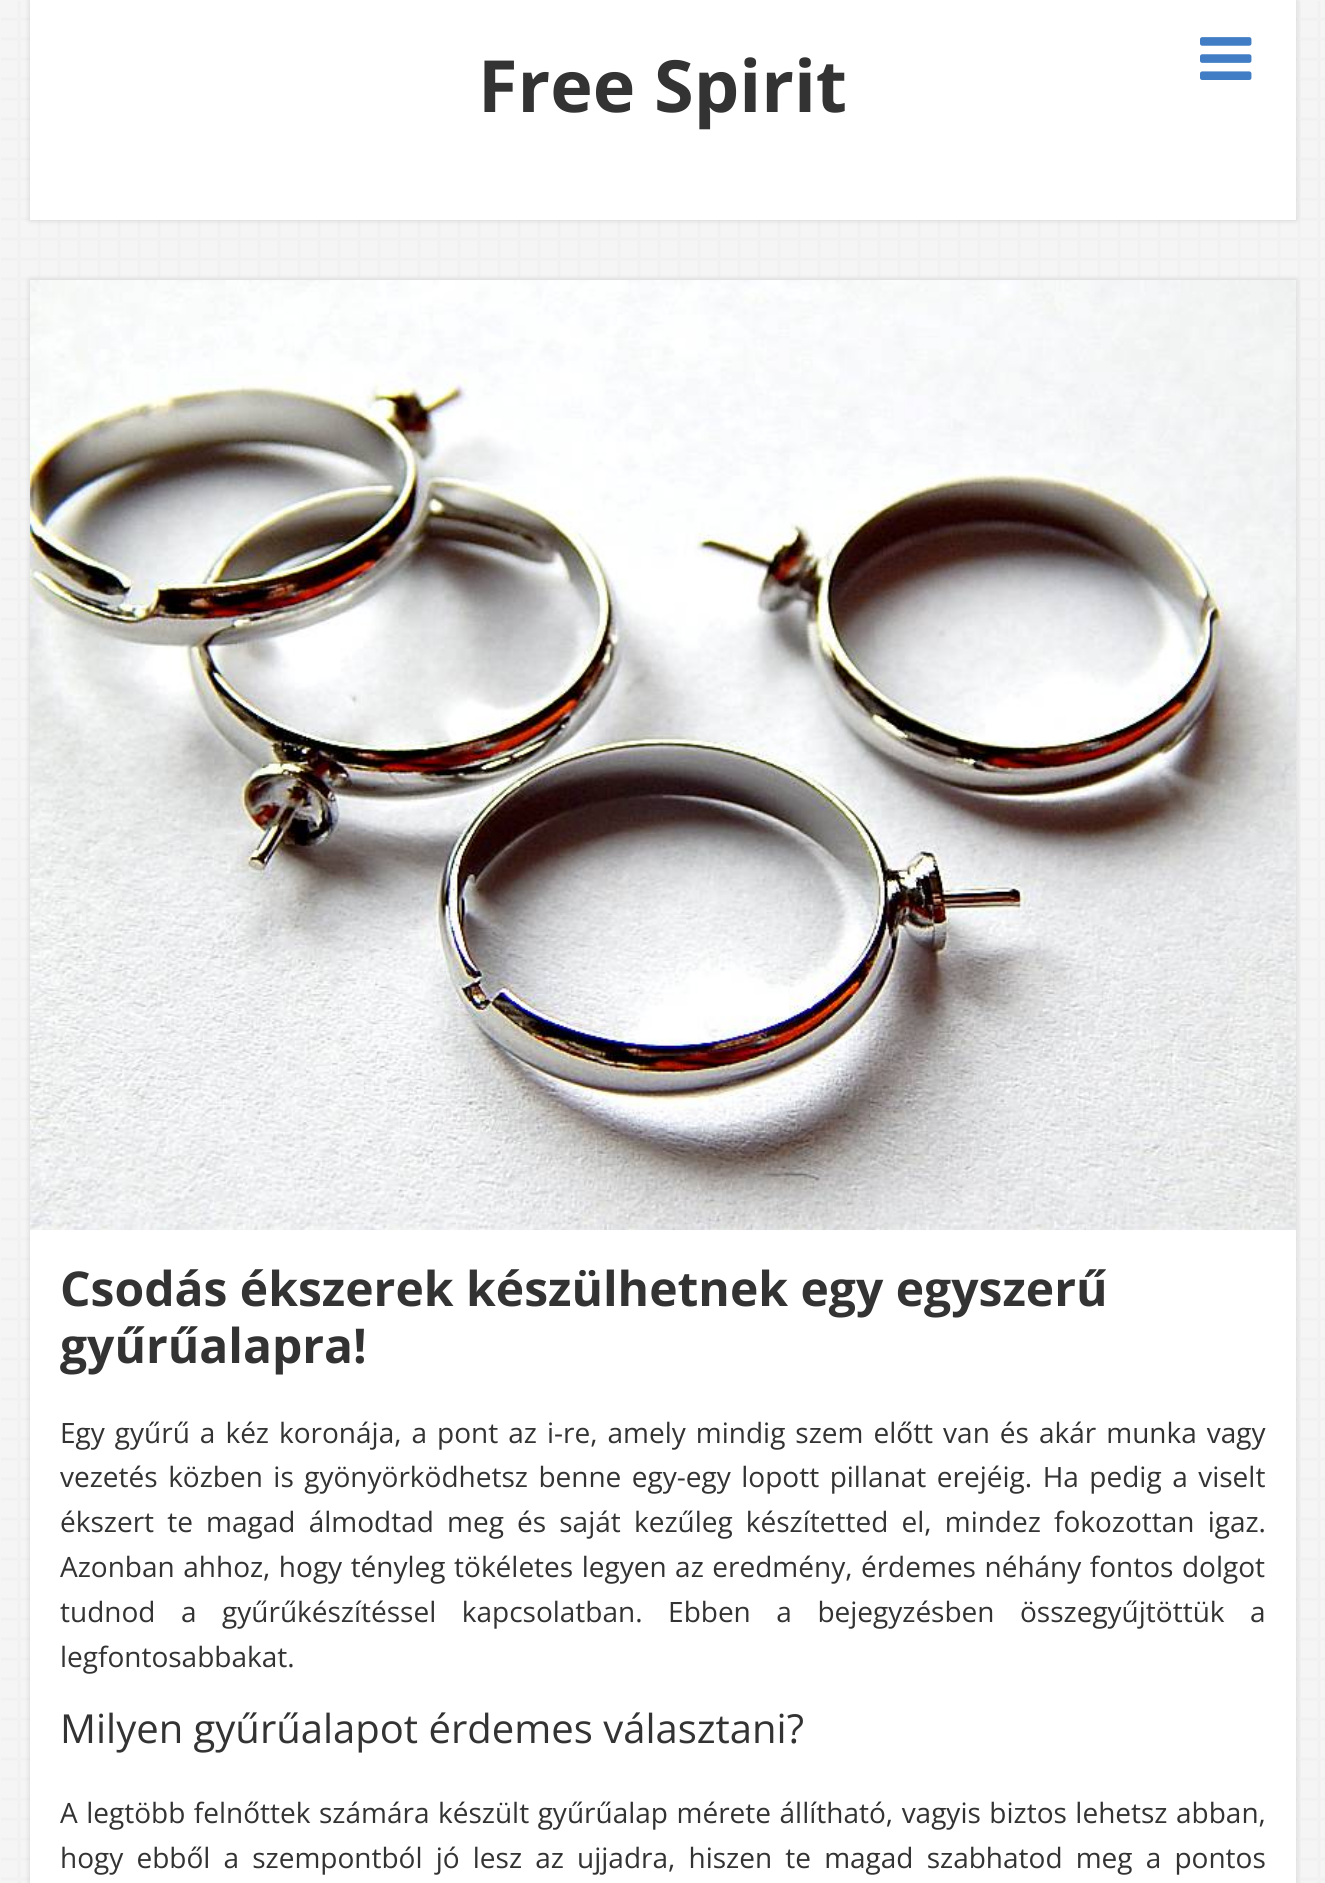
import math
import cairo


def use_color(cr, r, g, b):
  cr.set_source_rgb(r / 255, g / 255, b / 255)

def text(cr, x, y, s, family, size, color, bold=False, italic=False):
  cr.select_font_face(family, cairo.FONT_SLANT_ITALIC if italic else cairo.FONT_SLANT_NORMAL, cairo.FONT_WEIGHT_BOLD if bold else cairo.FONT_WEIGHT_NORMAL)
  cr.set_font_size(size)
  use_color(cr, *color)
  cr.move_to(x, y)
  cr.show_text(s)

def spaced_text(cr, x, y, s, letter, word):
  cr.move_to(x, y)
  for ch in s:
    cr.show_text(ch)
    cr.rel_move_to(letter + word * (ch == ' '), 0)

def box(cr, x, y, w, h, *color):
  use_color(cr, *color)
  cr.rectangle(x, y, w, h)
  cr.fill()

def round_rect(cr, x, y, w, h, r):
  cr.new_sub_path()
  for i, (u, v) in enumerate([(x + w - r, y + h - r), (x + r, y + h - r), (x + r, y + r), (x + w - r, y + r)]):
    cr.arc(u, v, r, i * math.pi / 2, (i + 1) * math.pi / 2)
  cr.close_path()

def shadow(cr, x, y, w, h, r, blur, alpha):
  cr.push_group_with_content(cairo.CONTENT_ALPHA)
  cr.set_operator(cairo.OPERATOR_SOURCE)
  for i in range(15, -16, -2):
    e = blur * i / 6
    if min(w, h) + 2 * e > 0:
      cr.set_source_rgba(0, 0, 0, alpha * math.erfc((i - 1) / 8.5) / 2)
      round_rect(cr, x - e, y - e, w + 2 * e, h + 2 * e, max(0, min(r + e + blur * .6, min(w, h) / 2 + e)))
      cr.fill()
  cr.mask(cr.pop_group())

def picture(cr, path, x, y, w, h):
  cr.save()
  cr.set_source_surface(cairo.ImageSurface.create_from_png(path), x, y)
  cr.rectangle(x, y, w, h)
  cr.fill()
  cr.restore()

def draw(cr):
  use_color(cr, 245, 245, 245)
  cr.paint()
  picture(cr, "img_01.png", 1, 1, 1324, 1882)
  use_color(cr, 0, 0, 0)
  shadow(cr, 30, 0, 1266, 220, 0, 3, 0.15)
  box(cr, 30, 0, 1266, 220, 255, 255, 255)
  picture(cr, "img_02.png", 1200, 37, 52, 43)
  use_color(cr, 0, 0, 0)
  shadow(cr, 30, 280, 1266, 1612, 0, 3, 0.15)
  box(cr, 30, 1230, 1266, 653, 255, 255, 255)
  picture(cr, "img_03.png", 30, 280, 1266, 950)
  text(cr, 478, 112, "Free Spirit", "Open Sans", 72, (51, 51, 51), bold=True)
  text(cr, 60, 1306, "Csodás ékszerek készülhetnek egy egyszerű", "Open Sans", 48, (51, 51, 51), bold=True)
  text(cr, 60, 1363, "gyűrűalapra!", "Open Sans", 48, (51, 51, 51), bold=True)
  cr.select_font_face("Open Sans")
  cr.set_font_size(28)
  spaced_text(cr, 60, 1443, "Egy gyűrű a kéz koronája, a pont az i-re, amely mindig szem előtt van és akár munka vagy", 0, 2.75)
  spaced_text(cr, 60, 1487, "vezetés közben is gyönyörködhetsz benne egy-egy lopott pillanat erejéig. Ha pedig a viselt", 0, 3.25)
  spaced_text(cr, 60, 1532, "ékszert te magad álmodtad meg és saját kezűleg készítetted el, mindez fokozottan igaz.", 0, 5.9)
  spaced_text(cr, 60, 1577, "Azonban ahhoz, hogy tényleg tökéletes legyen az eredmény, érdemes néhány fontos dolgot", 0, 1.25)
  spaced_text(cr, 60, 1622, "tudnod a gyűrűkészítéssel kapcsolatban. Ebben a bejegyzésben összegyűjtöttük a", 0, 18.25)
  text(cr, 60, 1667, "legfontosabbakat.", "Open Sans", 28, (51, 51, 51))
  text(cr, 60, 1743, "Milyen gyűrűalapot érdemes választani?", "Open Sans", 40, (51, 51, 51))
  cr.set_font_size(28)
  spaced_text(cr, 60, 1823, "A legtöbb felnőttek számára készült gyűrűalap mérete állítható, vagyis biztos lehetsz abban,", 0, 1.25)
  spaced_text(cr, 60, 1868, "hogy ebből a szempontból jó lesz az ujjadra, hiszen te magad szabhatod meg a pontos", 0, 5.9)


surface = cairo.ImageSurface(cairo.FORMAT_RGB24, 1325, 1883)
cr = cairo.Context(surface)
options = cairo.FontOptions()
options.set_hint_metrics(cairo.HINT_METRICS_OFF)
options.set_hint_style(cairo.HINT_STYLE_NONE)
cr.set_font_options(options)
cr.set_miter_limit(4)
draw(cr)
surface.write_to_png("out.png")
